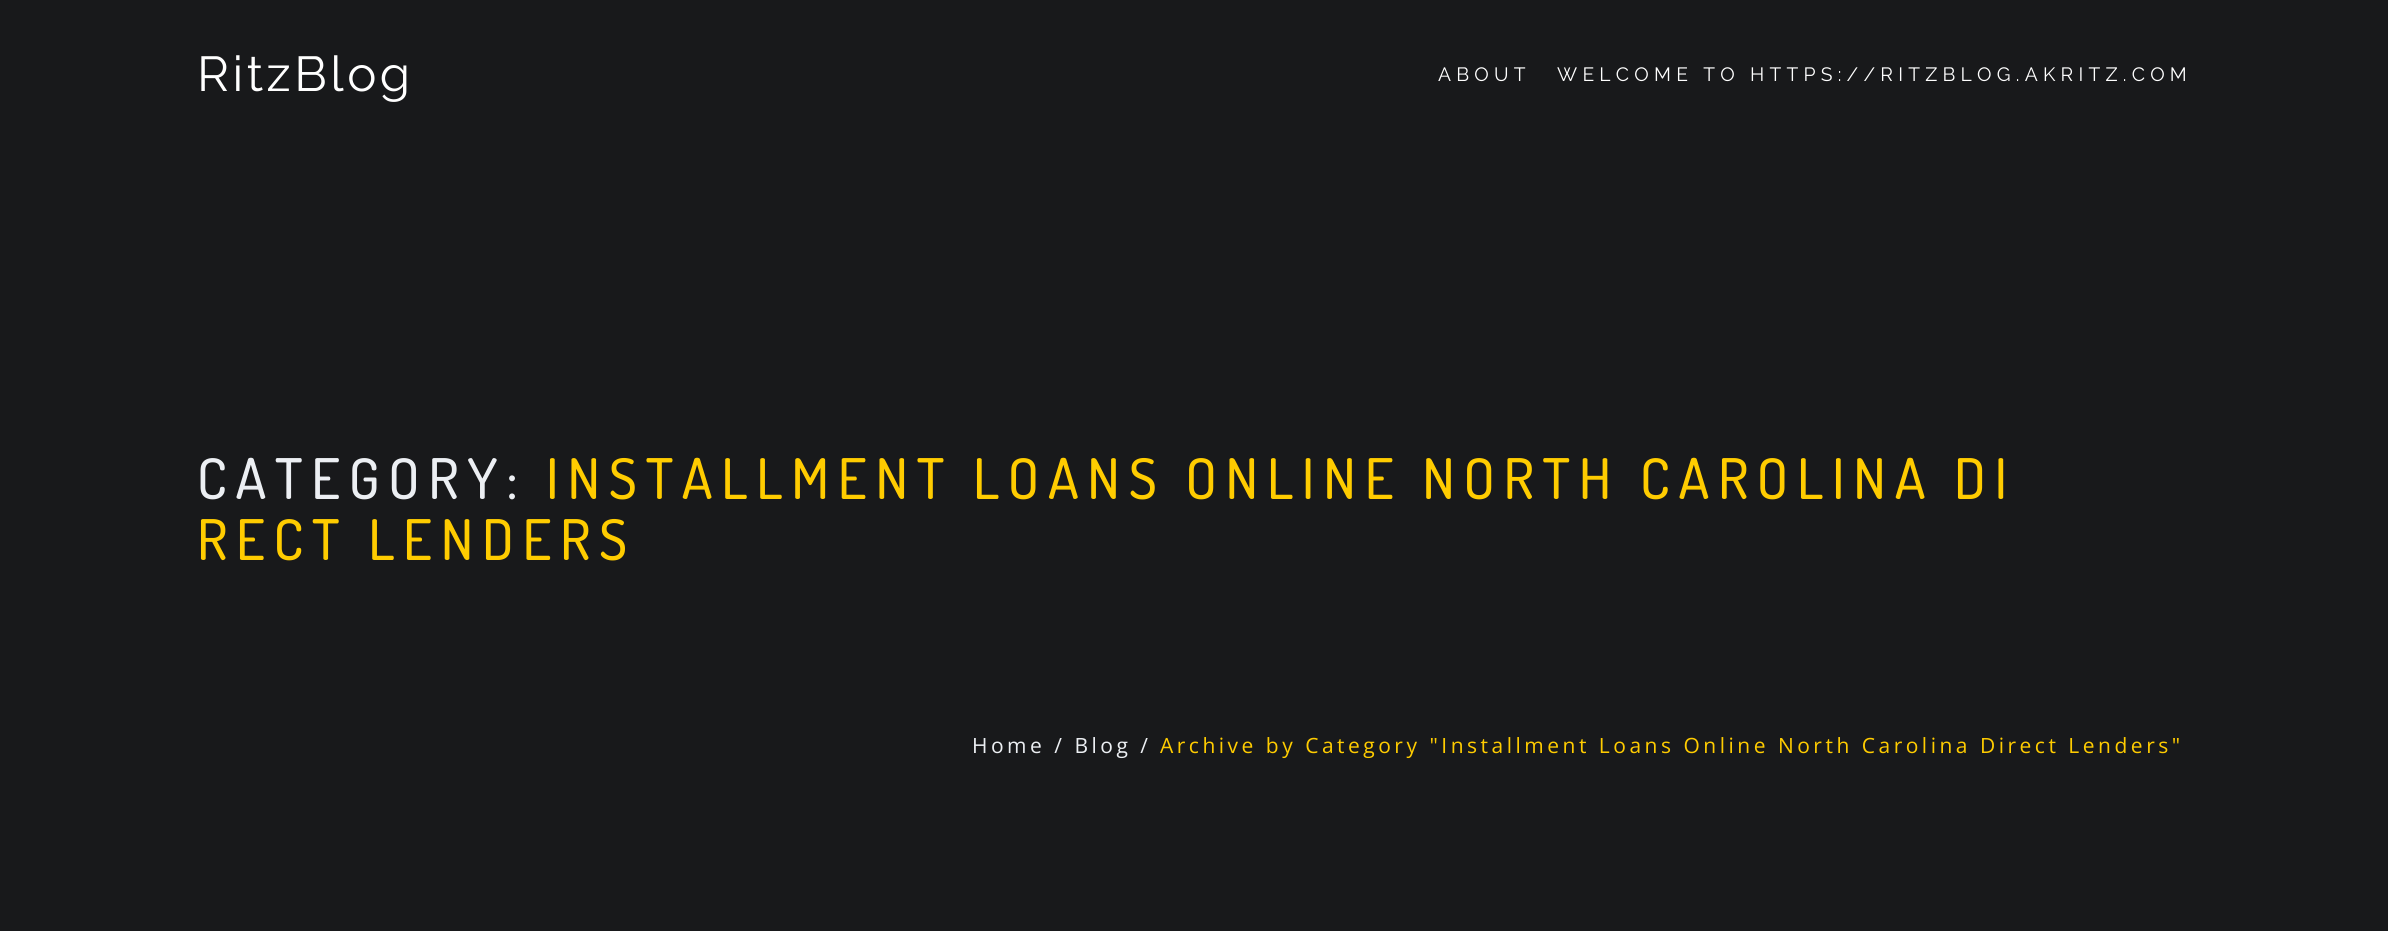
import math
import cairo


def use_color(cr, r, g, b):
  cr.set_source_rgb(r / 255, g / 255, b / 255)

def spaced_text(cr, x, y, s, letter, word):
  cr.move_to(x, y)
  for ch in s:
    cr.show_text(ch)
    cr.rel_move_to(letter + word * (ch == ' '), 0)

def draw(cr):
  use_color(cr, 24, 25, 27)
  cr.paint()
  cr.select_font_face("Raleway")
  cr.set_font_size(49)
  use_color(cr, 255, 255, 255)
  spaced_text(cr, 197, 91, "RitzBlog", 3.5, 0)
  cr.set_font_size(19.25)
  spaced_text(cr, 1438, 81, "ABOUT", 5.25, 0)
  spaced_text(cr, 1557, 81, "WELCOME TO HTTPS://RITZBLOG.AKRITZ.COM", 5.25, 0)
  cr.select_font_face("Dosis Medium")
  cr.set_font_size(56)
  use_color(cr, 236, 239, 243)
  spaced_text(cr, 197, 499, "CATEGORY:", 8.75, 0)
  use_color(cr, 255, 204, 0)
  spaced_text(cr, 546, 499, "INSTALLMENT LOANS ONLINE NORTH CAROLINA DI", 8.75, 0)
  spaced_text(cr, 197, 560, "RECT LENDERS", 8.75, 0)
  cr.select_font_face("Open Sans")
  cr.set_font_size(21)
  use_color(cr, 236, 239, 243)
  spaced_text(cr, 972, 753, "Home / Blog /", 3.5, 0)
  use_color(cr, 255, 204, 0)
  spaced_text(cr, 1160, 753, "Archive by Category \"Installment Loans Online North Carolina Direct Lenders\"", 3.5, 0)


surface = cairo.ImageSurface(cairo.FORMAT_RGB24, 2388, 931)
cr = cairo.Context(surface)
options = cairo.FontOptions()
options.set_hint_metrics(cairo.HINT_METRICS_OFF)
options.set_hint_style(cairo.HINT_STYLE_NONE)
cr.set_font_options(options)
cr.set_miter_limit(4)
draw(cr)
surface.write_to_png("out.png")
